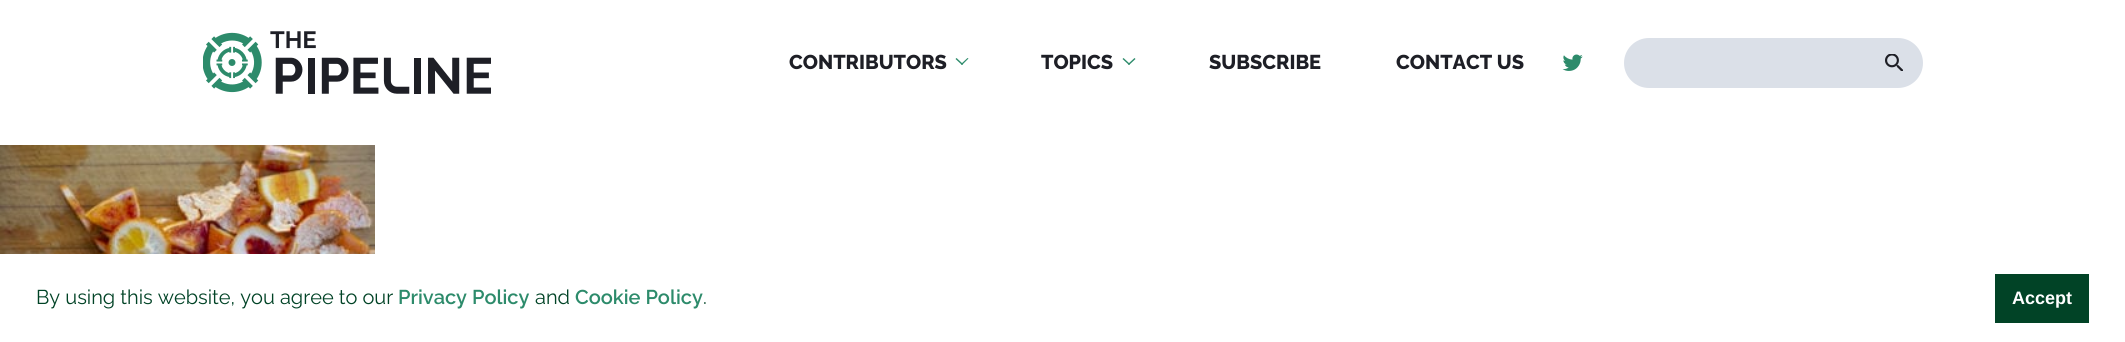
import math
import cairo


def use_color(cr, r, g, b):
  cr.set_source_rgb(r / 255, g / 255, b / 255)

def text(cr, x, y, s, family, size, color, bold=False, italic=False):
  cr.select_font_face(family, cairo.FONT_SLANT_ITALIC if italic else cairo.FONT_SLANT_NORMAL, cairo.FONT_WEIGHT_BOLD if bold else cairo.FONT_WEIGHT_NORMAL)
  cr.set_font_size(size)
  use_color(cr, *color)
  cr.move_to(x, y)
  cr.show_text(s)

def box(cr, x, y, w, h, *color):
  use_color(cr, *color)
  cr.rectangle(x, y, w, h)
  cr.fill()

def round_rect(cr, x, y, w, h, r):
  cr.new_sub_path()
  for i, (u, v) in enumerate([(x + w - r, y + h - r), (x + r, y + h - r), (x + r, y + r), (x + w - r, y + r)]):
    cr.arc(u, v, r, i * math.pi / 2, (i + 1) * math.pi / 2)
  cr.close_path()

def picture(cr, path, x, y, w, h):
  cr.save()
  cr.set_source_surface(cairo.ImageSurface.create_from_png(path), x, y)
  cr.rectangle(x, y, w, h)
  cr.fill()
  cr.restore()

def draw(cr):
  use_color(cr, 255, 255, 255)
  cr.paint()
  picture(cr, "img_01.png", 203, 31, 288, 63)
  use_color(cr, 45, 139, 107)
  cr.new_path()
  cr.move_to(968.5, 58.5)
  cr.line_to(962, 65)
  cr.line_to(961, 64)
  cr.line_to(967.5, 58)
  cr.close_path()
  cr.fill()
  cr.new_path()
  cr.move_to(963, 64)
  cr.line_to(962, 65)
  cr.line_to(955.5, 59)
  cr.line_to(956.5, 58)
  cr.close_path()
  cr.fill()
  cr.new_path()
  cr.move_to(1135.5, 59)
  cr.line_to(1129, 65)
  cr.line_to(1128, 64)
  cr.line_to(1134.5, 58)
  cr.close_path()
  cr.fill()
  cr.new_path()
  cr.move_to(1130, 64)
  cr.line_to(1129, 65)
  cr.line_to(1122.5, 59)
  cr.line_to(1123.5, 58)
  cr.close_path()
  cr.fill()
  picture(cr, "img_02.png", 1562, 54, 21, 17)
  use_color(cr, 219, 224, 232)
  round_rect(cr, 1624, 38, 299, 50, 25)
  cr.fill()
  picture(cr, "img_03.png", 1885, 54, 18, 17)
  picture(cr, "img_04.png", 0, 145, 375, 109)
  box(cr, 1995, 274, 94, 49, 1, 67, 38)
  text(cr, 789, 69, "CONTRIBUTORS", "Raleway ExtraBold", 20, (30, 31, 38))
  text(cr, 1041, 69, "TOPICS", "Raleway ExtraBold", 20, (30, 31, 38))
  text(cr, 1209, 69, "SUBSCRIBE", "Raleway ExtraBold", 20, (30, 31, 38))
  text(cr, 1396, 69, "CONTACT US", "Raleway ExtraBold", 20, (30, 31, 38))
  text(cr, 36, 304, "By using this website, you agree to our", "Raleway", 20, (1, 67, 38))
  text(cr, 398, 304, "Privacy Policy", "Raleway SemiBold", 20, (45, 139, 107))
  text(cr, 535, 304, "and", "Raleway", 20, (1, 67, 38))
  text(cr, 575, 304, "Cookie Policy", "Raleway SemiBold", 20, (45, 139, 107))
  text(cr, 703, 304, ".", "Raleway", 20, (1, 67, 38))
  text(cr, 2012, 304, "Accept", "Liberation Sans", 18, (255, 255, 255), bold=True)


surface = cairo.ImageSurface(cairo.FORMAT_RGB24, 2125, 342)
cr = cairo.Context(surface)
options = cairo.FontOptions()
options.set_hint_metrics(cairo.HINT_METRICS_OFF)
options.set_hint_style(cairo.HINT_STYLE_NONE)
cr.set_font_options(options)
cr.set_miter_limit(4)
draw(cr)
surface.write_to_png("out.png")
